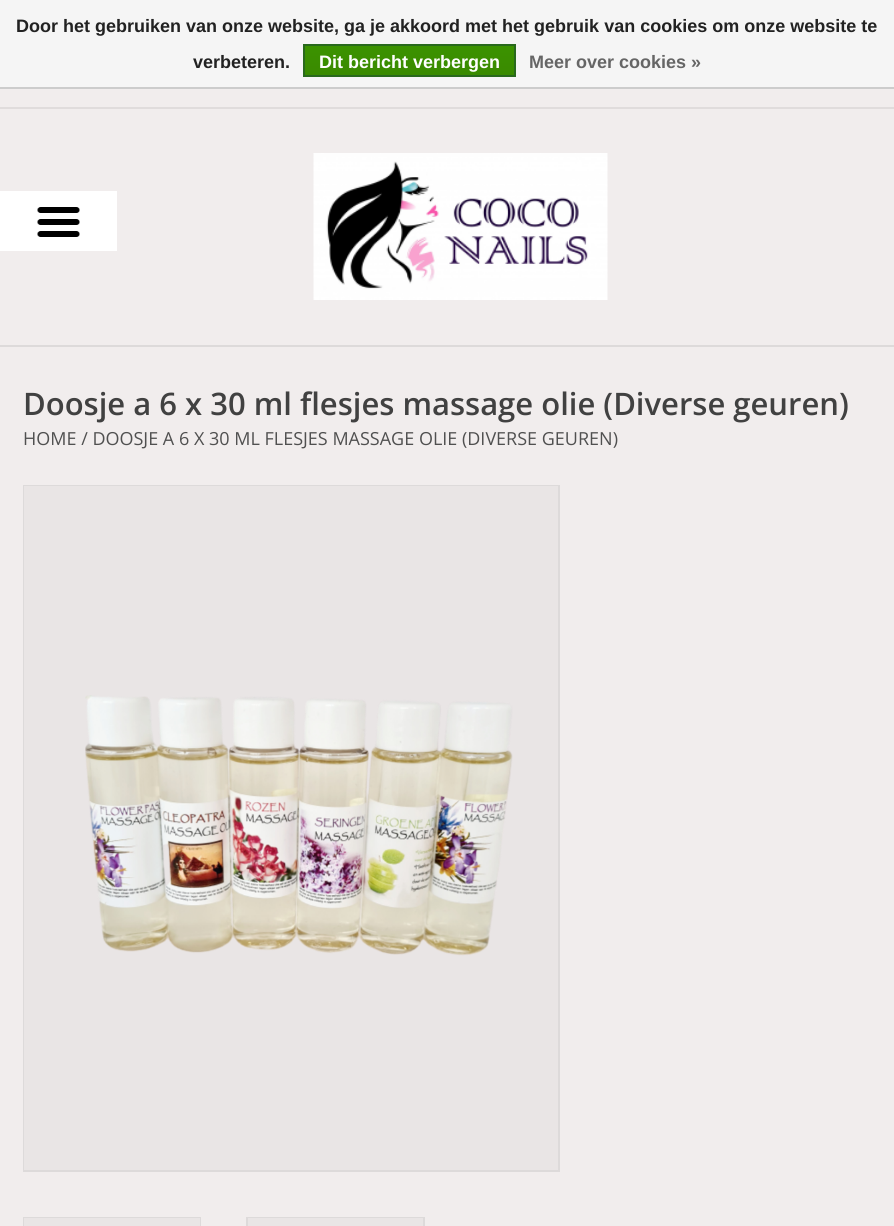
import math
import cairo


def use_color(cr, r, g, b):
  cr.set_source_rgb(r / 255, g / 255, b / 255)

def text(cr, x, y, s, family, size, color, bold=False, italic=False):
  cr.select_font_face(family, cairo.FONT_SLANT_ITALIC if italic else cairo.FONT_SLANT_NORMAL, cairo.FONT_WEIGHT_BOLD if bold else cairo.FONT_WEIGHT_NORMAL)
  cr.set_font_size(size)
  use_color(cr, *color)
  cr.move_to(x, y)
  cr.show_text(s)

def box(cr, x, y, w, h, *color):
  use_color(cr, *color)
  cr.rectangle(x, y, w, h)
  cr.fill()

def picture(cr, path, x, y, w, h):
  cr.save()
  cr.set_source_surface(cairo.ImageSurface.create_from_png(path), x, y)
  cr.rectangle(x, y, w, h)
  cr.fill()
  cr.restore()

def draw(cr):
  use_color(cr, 241, 237, 237)
  cr.paint()
  box(cr, 0, 0, 894, 87, 245, 245, 245)
  box(cr, 0, 87, 894, 2, 204, 204, 204)
  gradient = cairo.LinearGradient(410, 45, 410, 75)
  gradient.add_color_stop_rgba(0, 0.235, 0.576, 0, 1)
  gradient.add_color_stop_rgba(1, 0.224, 0.541, 0, 1)
  cr.set_source(gradient)
  cr.rectangle(305, 46, 209, 29)
  cr.fill()
  cr.rectangle(304, 45, 211, 31)
  use_color(cr, 41, 105, 29)
  cr.stroke()
  box(cr, 0, 107, 894, 2, 224, 220, 220)
  box(cr, 0, 345, 894, 2, 221, 218, 218)
  picture(cr, "img_01.png", 313, 153, 295, 147)
  box(cr, 0, 191, 117, 60, 255, 255, 255)
  picture(cr, "img_02.png", 37, 207, 43, 30)
  cr.rectangle(24, 486, 535, 685)
  use_color(cr, 221, 218, 218)
  cr.stroke()
  box(cr, 24, 486, 534, 684, 233, 229, 229)
  picture(cr, "img_03.png", 85, 695, 428, 261)
  cr.rectangle(24, 1218, 176, 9)
  use_color(cr, 221, 218, 218)
  cr.stroke()
  box(cr, 24, 1218, 176, 8, 233, 229, 229)
  cr.rectangle(247, 1218, 177, 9)
  use_color(cr, 221, 218, 218)
  cr.stroke()
  box(cr, 248, 1218, 175, 8, 233, 229, 229)
  text(cr, 16, 32, "Door het gebruiken van onze website, ga je akkoord met het gebruik van cookies om onze website te", "Liberation Sans", 18, (34, 34, 34), bold=True)
  text(cr, 193, 68, "verbeteren.", "Liberation Sans", 18, (34, 34, 34), bold=True)
  text(cr, 319, 68, "Dit bericht verbergen", "Liberation Sans", 18, (255, 255, 255), bold=True)
  text(cr, 529, 68, "Meer over cookies »", "Liberation Sans", 18, (102, 102, 102), bold=True)
  text(cr, 23, 415, "Doosje a 6 x 30 ml flesjes massage olie (Diverse geuren)", "Open Sans SemiBold", 31, (65, 65, 65))
  text(cr, 23, 445, "HOME / DOOSJE A 6 X 30 ML FLESJES MASSAGE OLIE (DIVERSE GEUREN)", "Open Sans", 18, (80, 80, 80))


surface = cairo.ImageSurface(cairo.FORMAT_RGB24, 894, 1226)
cr = cairo.Context(surface)
options = cairo.FontOptions()
options.set_hint_metrics(cairo.HINT_METRICS_OFF)
options.set_hint_style(cairo.HINT_STYLE_NONE)
cr.set_font_options(options)
cr.set_miter_limit(4)
draw(cr)
surface.write_to_png("out.png")
